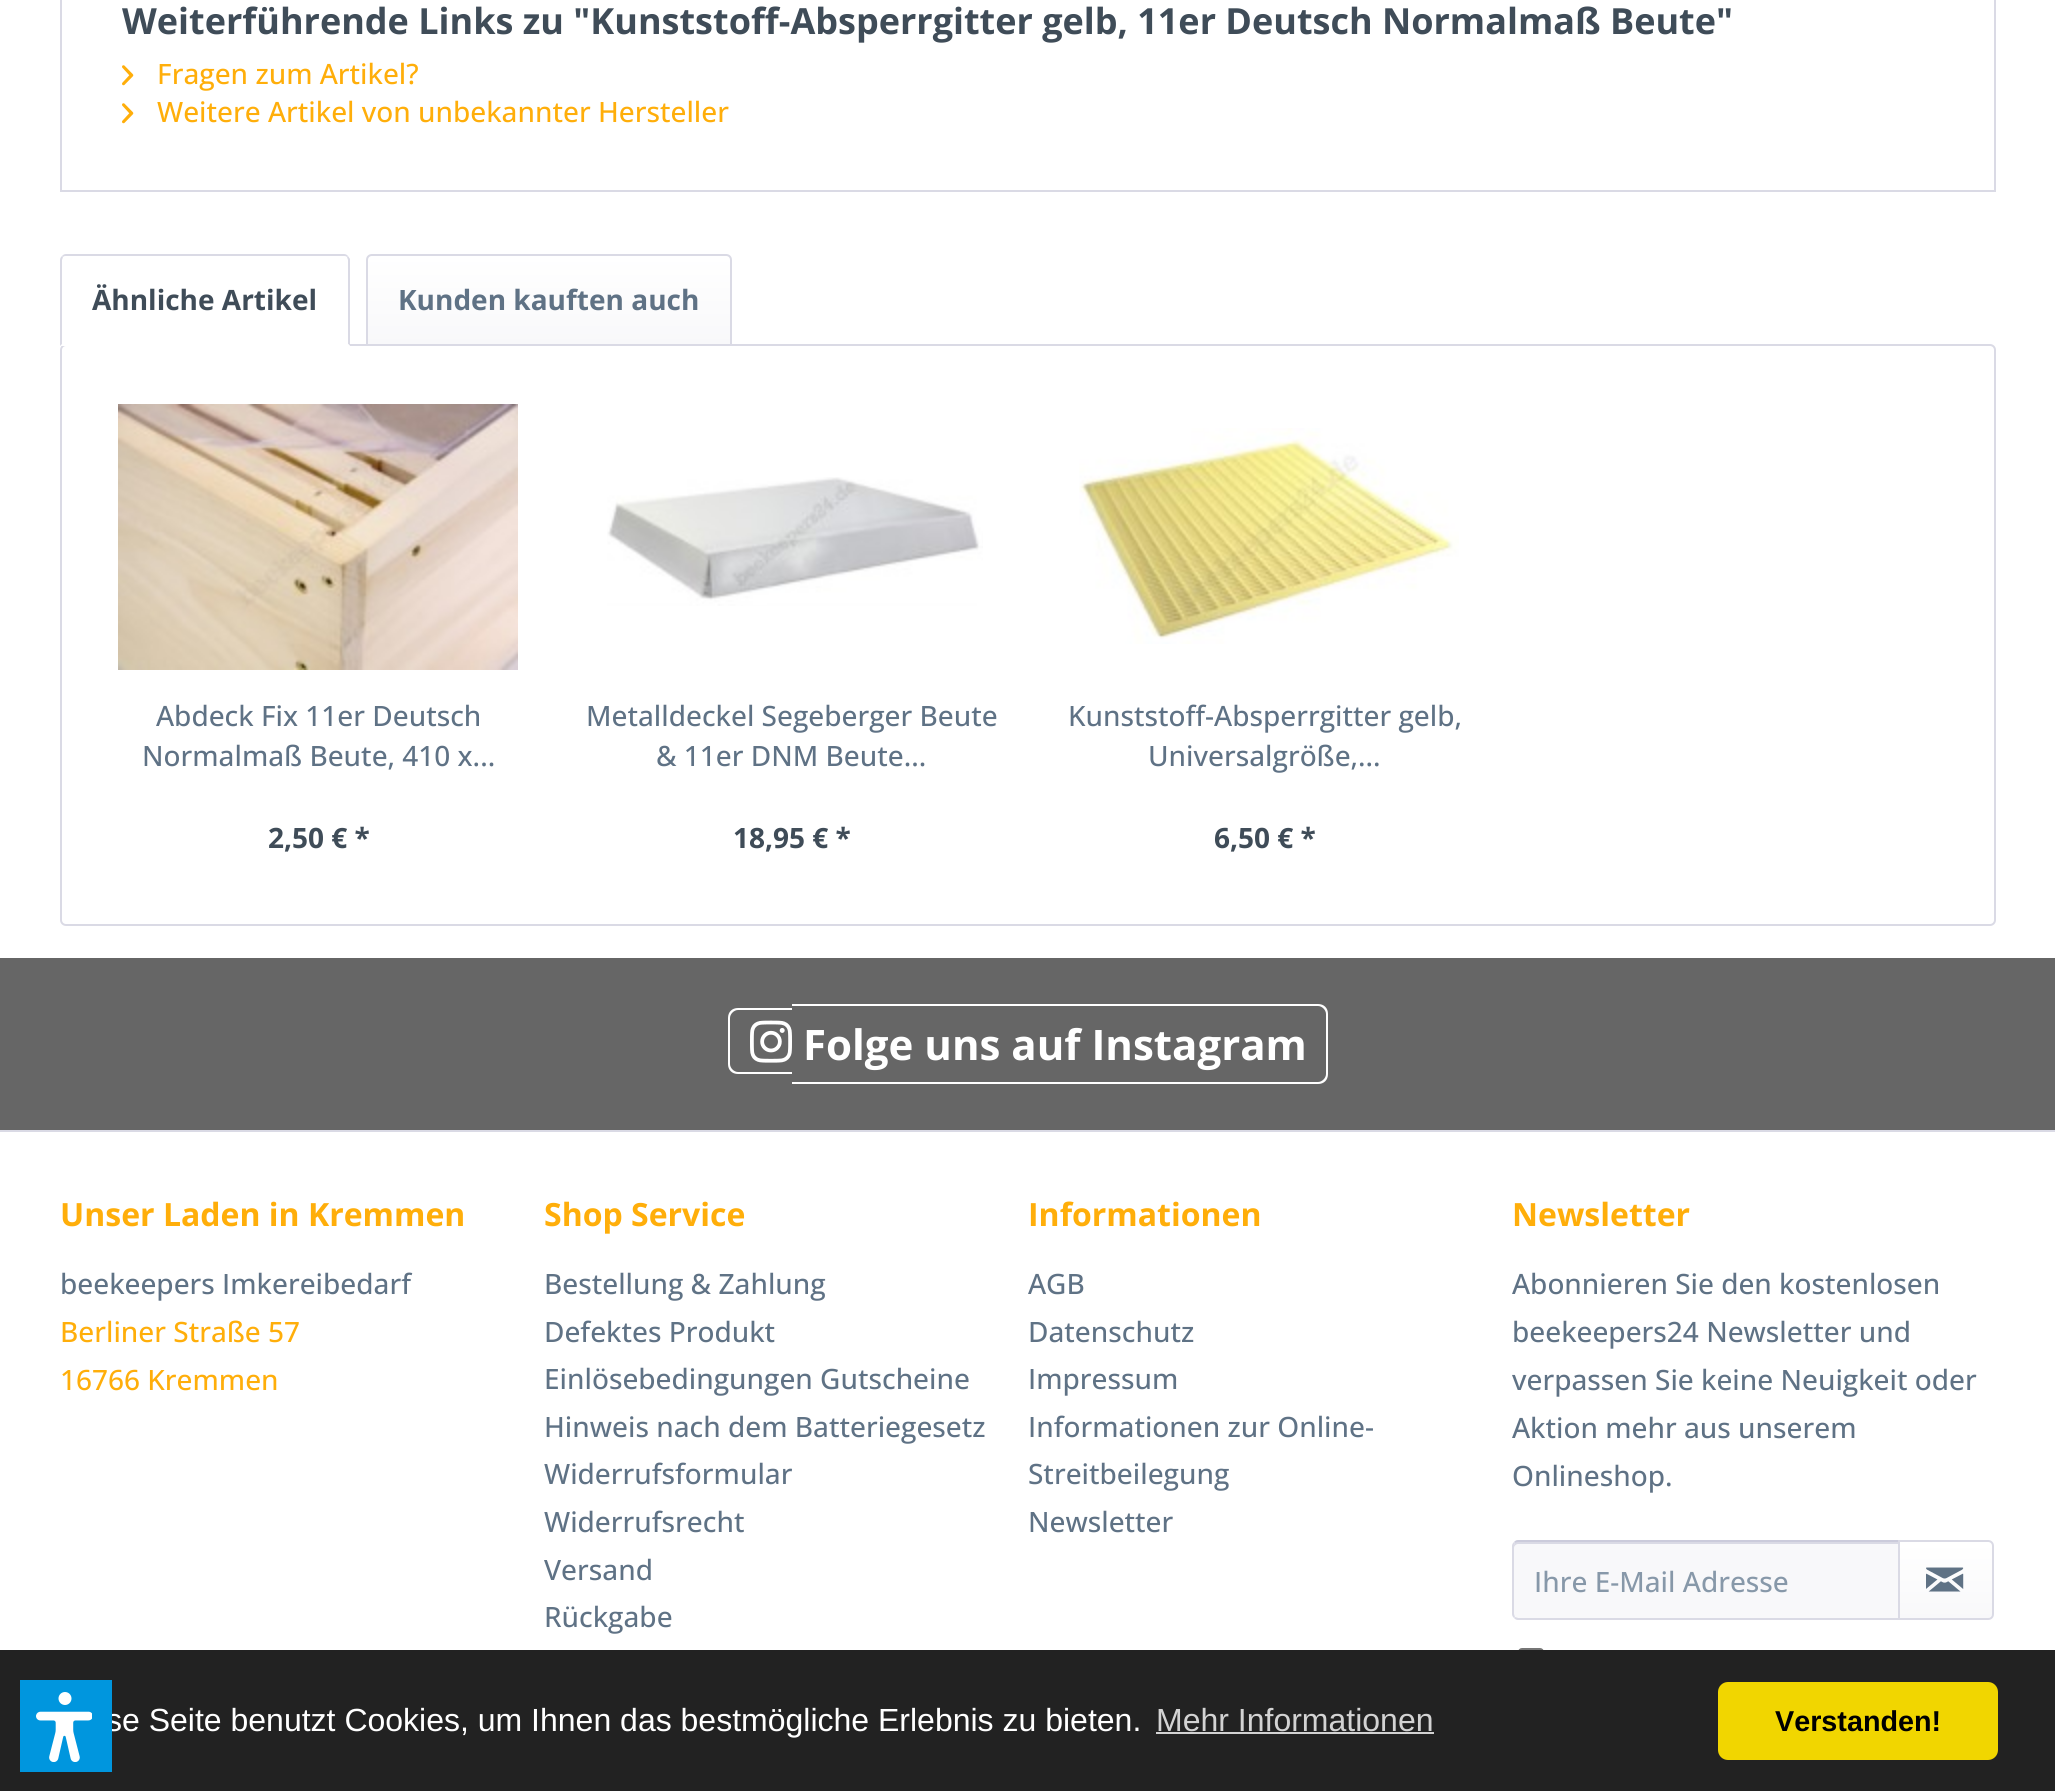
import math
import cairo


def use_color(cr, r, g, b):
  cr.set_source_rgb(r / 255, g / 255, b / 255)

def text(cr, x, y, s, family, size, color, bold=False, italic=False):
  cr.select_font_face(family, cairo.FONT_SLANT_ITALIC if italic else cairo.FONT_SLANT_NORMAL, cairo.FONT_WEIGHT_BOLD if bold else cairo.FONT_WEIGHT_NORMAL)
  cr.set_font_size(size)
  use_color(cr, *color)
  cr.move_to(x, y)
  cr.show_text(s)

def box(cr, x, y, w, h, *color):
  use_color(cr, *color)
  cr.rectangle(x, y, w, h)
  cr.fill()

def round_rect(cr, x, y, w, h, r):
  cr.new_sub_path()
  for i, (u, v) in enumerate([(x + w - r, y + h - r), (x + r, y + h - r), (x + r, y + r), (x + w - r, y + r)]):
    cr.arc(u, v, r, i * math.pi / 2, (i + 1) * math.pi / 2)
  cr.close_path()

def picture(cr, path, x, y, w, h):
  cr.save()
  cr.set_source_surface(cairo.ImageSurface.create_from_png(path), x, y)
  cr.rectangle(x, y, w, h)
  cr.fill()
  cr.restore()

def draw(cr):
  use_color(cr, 255, 255, 255)
  cr.paint()
  cr.rectangle(61, -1, 1934, 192)
  use_color(cr, 218, 218, 229)
  cr.stroke()
  picture(cr, "img_01.png", 122, 65, 12, 21)
  picture(cr, "img_01.png", 122, 103, 12, 21)
  round_rect(cr, 61, 345, 1934, 580, 5)
  cr.stroke()
  use_color(cr, 255, 255, 255)
  cr.new_path()
  cr.move_to(66, 254)
  cr.line_to(344, 254)
  cr.curve_to(347.5, 254, 350, 256.5, 350, 260)
  cr.line_to(350, 346)
  cr.line_to(60, 346)
  cr.line_to(60, 260)
  cr.curve_to(60, 256.5, 62.5, 254, 66, 254)
  cr.close_path()
  cr.fill()
  use_color(cr, 218, 218, 229)
  cr.new_path()
  cr.move_to(66, 254)
  cr.curve_to(64, 254, 63, 255, 62, 256)
  cr.line_to(63, 257)
  cr.curve_to(64, 256, 65, 256, 66, 256)
  cr.line_to(344, 256)
  cr.curve_to(345, 256, 346, 256, 347, 257)
  cr.line_to(348, 256)
  cr.curve_to(347, 255, 346, 254, 344, 254)
  cr.close_path()
  cr.fill()
  cr.new_path()
  cr.move_to(350, 346)
  cr.line_to(350, 259)
  cr.line_to(348, 256)
  cr.line_to(347, 257)
  cr.line_to(348, 260)
  cr.line_to(348, 344)
  cr.close_path()
  cr.fill()
  use_color(cr, 255, 255, 255)
  cr.new_path()
  cr.move_to(350, 346)
  cr.line_to(348, 344)
  cr.line_to(62, 344)
  cr.line_to(60, 346)
  cr.close_path()
  cr.fill()
  use_color(cr, 218, 218, 229)
  cr.new_path()
  cr.move_to(60, 346)
  cr.line_to(62, 344)
  cr.line_to(62, 260)
  cr.line_to(63, 257)
  cr.line_to(62, 256)
  cr.curve_to(61, 257, 60, 258, 60, 260)
  cr.close_path()
  cr.fill()
  gradient = cairo.LinearGradient(549, 256, 549, 344)
  gradient.add_color_stop_rgba(0, 1, 1, 1, 1)
  gradient.add_color_stop_rgba(1, 0.973, 0.973, 0.98, 1)
  cr.set_source(gradient)
  cr.new_path()
  cr.move_to(372, 256)
  cr.line_to(726, 256)
  cr.curve_to(728, 256, 730, 258, 730, 260)
  cr.line_to(730, 344)
  cr.line_to(368, 344)
  cr.line_to(368, 260)
  cr.curve_to(368, 258, 370, 256, 372, 256)
  cr.close_path()
  cr.fill()
  cr.new_path()
  cr.move_to(372, 255)
  cr.line_to(726, 255)
  cr.curve_to(729, 255, 731, 257, 731, 260)
  cr.line_to(731, 345)
  cr.line_to(367, 345)
  cr.line_to(367, 260)
  cr.curve_to(367, 257, 369, 255, 372, 255)
  cr.close_path()
  use_color(cr, 218, 218, 229)
  cr.stroke()
  picture(cr, "img_02.png", 118, 404, 400, 266)
  picture(cr, "img_03.png", 607, 477, 376, 129)
  picture(cr, "img_04.png", 1079, 428, 380, 216)
  box(cr, 0, 958, 2055, 172, 102, 102, 102)
  use_color(cr, 255, 255, 255)
  cr.set_fill_rule(cairo.FILL_RULE_EVEN_ODD)
  cr.new_path()
  cr.move_to(738, 1008)
  cr.line_to(792, 1008)
  cr.line_to(792, 1074)
  cr.line_to(738, 1074)
  cr.curve_to(732, 1074, 728, 1070, 728, 1064)
  cr.line_to(728, 1018)
  cr.curve_to(728, 1012, 732, 1008, 738, 1008)
  cr.close_path()
  cr.move_to(738, 1010)
  cr.line_to(792, 1010)
  cr.line_to(792, 1072)
  cr.line_to(738, 1072)
  cr.curve_to(734, 1072, 730, 1068, 730, 1064)
  cr.line_to(730, 1018)
  cr.curve_to(730, 1014, 734, 1010, 738, 1010)
  cr.close_path()
  cr.fill()
  picture(cr, "img_05.png", 750, 1020, 42, 43)
  cr.new_path()
  cr.move_to(792, 1004)
  cr.line_to(1318, 1004)
  cr.curve_to(1324, 1004, 1328, 1008, 1328, 1014)
  cr.line_to(1328, 1074)
  cr.curve_to(1328, 1080, 1324, 1084, 1318, 1084)
  cr.line_to(792, 1084)
  cr.close_path()
  cr.move_to(792, 1006)
  cr.line_to(1318, 1006)
  cr.curve_to(1322, 1006, 1326, 1010, 1326, 1014)
  cr.line_to(1326, 1074)
  cr.curve_to(1326, 1078, 1322, 1082, 1318, 1082)
  cr.line_to(792, 1082)
  cr.close_path()
  cr.fill()
  box(cr, 0, 1130, 2055, 2, 218, 218, 229)
  use_color(cr, 248, 248, 250)
  cr.new_path()
  cr.move_to(1518, 1542)
  cr.line_to(1898, 1542)
  cr.line_to(1898, 1618)
  cr.line_to(1518, 1618)
  cr.curve_to(1516, 1618, 1514, 1616, 1514, 1614)
  cr.line_to(1514, 1546)
  cr.curve_to(1514, 1544, 1516, 1542, 1518, 1542)
  cr.close_path()
  cr.fill()
  use_color(cr, 218, 218, 229)
  cr.set_fill_rule(cairo.FILL_RULE_WINDING)
  cr.new_path()
  cr.move_to(1518, 1544)
  cr.line_to(1898, 1544)
  cr.line_to(1898, 1542)
  cr.line_to(1518, 1542)
  cr.curve_to(1514, 1542, 1514, 1545, 1514, 1548)
  cr.curve_to(1514, 1546, 1516, 1544, 1518, 1544)
  cr.close_path()
  cr.fill()
  use_color(cr, 203, 203, 219)
  cr.new_path()
  cr.move_to(1518, 1540)
  cr.curve_to(1516, 1540, 1515, 1541, 1514, 1542)
  cr.line_to(1515, 1543)
  cr.line_to(1518, 1542)
  cr.line_to(1898, 1542)
  cr.line_to(1900, 1540)
  cr.close_path()
  cr.fill()
  use_color(cr, 218, 218, 229)
  cr.new_path()
  cr.move_to(1900, 1620)
  cr.line_to(1898, 1618)
  cr.line_to(1518, 1618)
  cr.line_to(1515, 1617)
  cr.line_to(1514, 1618)
  cr.curve_to(1515, 1619, 1516, 1620, 1518, 1620)
  cr.close_path()
  cr.fill()
  cr.new_path()
  cr.move_to(1512, 1546)
  cr.line_to(1512, 1614)
  cr.curve_to(1512, 1616, 1513, 1617, 1514, 1618)
  cr.line_to(1515, 1617)
  cr.line_to(1514, 1614)
  cr.line_to(1514, 1546)
  cr.line_to(1515, 1543)
  cr.line_to(1514, 1542)
  cr.curve_to(1513, 1543, 1512, 1544, 1512, 1546)
  cr.close_path()
  cr.fill()
  gradient = cairo.LinearGradient(1946, 1542, 1946, 1618)
  gradient.add_color_stop_rgba(0, 1, 1, 1, 1)
  gradient.add_color_stop_rgba(1, 0.973, 0.973, 0.98, 1)
  cr.set_source(gradient)
  cr.new_path()
  cr.move_to(1900, 1542)
  cr.line_to(1988, 1542)
  cr.curve_to(1990, 1542, 1992, 1544, 1992, 1546)
  cr.line_to(1992, 1614)
  cr.curve_to(1992, 1616, 1990, 1618, 1988, 1618)
  cr.line_to(1900, 1618)
  cr.close_path()
  cr.fill()
  cr.new_path()
  cr.move_to(1899, 1541)
  cr.line_to(1988, 1541)
  cr.curve_to(1991, 1541, 1993, 1543, 1993, 1546)
  cr.line_to(1993, 1614)
  cr.curve_to(1993, 1617, 1991, 1619, 1988, 1619)
  cr.line_to(1899, 1619)
  cr.close_path()
  use_color(cr, 218, 218, 229)
  cr.stroke()
  picture(cr, "img_06.png", 1926, 1567, 38, 25)
  round_rect(cr, 1519, 1649, 24, 24, 3)
  use_color(cr, 118, 118, 118)
  cr.stroke()
  box(cr, 0, 1650, 2055, 141, 34, 34, 34)
  box(cr, 1156, 1732, 278, 2, 211, 211, 211)
  use_color(cr, 241, 214, 0)
  round_rect(cr, 1718, 1682, 280, 78, 10)
  cr.fill()
  text(cr, 122, 34, "Weiterführende Links zu \"Kunststoff-Absperrgitter gelb, 11er Deutsch Normalmaß Beute\"", "Open Sans", 36, (63, 76, 88), bold=True)
  text(cr, 157, 84, "Fragen zum Artikel?", "Open Sans Medium", 28, (255, 174, 10))
  text(cr, 157, 122, "Weitere Artikel von unbekannter Hersteller", "Open Sans Medium", 28, (255, 174, 10))
  text(cr, 92, 310, "Ähnliche Artikel", "Open Sans", 28, (63, 76, 88), bold=True)
  text(cr, 398, 310, "Kunden kauften auch", "Open Sans", 28, (95, 114, 133), bold=True)
  text(cr, 156, 726, "Abdeck Fix 11er Deutsch", "Open Sans Medium", 28, (95, 114, 133))
  text(cr, 142, 766, "Normalmaß Beute, 410 x...", "Open Sans Medium", 28, (95, 114, 133))
  text(cr, 268, 848, "2,50 € *", "Open Sans", 28, (63, 76, 88), bold=True)
  text(cr, 586, 726, "Metalldeckel Segeberger Beute", "Open Sans Medium", 28, (95, 114, 133))
  text(cr, 656, 766, "& 11er DNM Beute...", "Open Sans Medium", 28, (95, 114, 133))
  text(cr, 733, 848, "18,95 € *", "Open Sans", 28, (63, 76, 88), bold=True)
  text(cr, 1068, 726, "Kunststoff-Absperrgitter gelb,", "Open Sans Medium", 28, (95, 114, 133))
  text(cr, 1148, 766, "Universalgröße,...", "Open Sans Medium", 28, (95, 114, 133))
  text(cr, 1214, 848, "6,50 € *", "Open Sans", 28, (63, 76, 88), bold=True)
  text(cr, 803, 1060, "Folge uns auf Instagram", "Open Sans", 42, (255, 255, 255), bold=True)
  text(cr, 60, 1226, "Unser Laden in Kremmen", "Open Sans", 32, (255, 174, 10), bold=True)
  text(cr, 60, 1294, "beekeepers Imkereibedarf", "Open Sans Medium", 28, (95, 114, 133))
  text(cr, 60, 1342, "Berliner Straße 57", "Open Sans Medium", 28, (255, 174, 10))
  text(cr, 60, 1390, "16766 Kremmen", "Open Sans Medium", 28, (255, 174, 10))
  text(cr, 544, 1226, "Shop Service", "Open Sans", 32, (255, 174, 10), bold=True)
  text(cr, 544, 1294, "Bestellung & Zahlung", "Open Sans Medium", 28, (95, 114, 133))
  text(cr, 544, 1342, "Defektes Produkt", "Open Sans Medium", 28, (95, 114, 133))
  text(cr, 544, 1389, "Einlösebedingungen Gutscheine", "Open Sans Medium", 28, (95, 114, 133))
  text(cr, 544, 1437, "Hinweis nach dem Batteriegesetz", "Open Sans Medium", 28, (95, 114, 133))
  text(cr, 544, 1484, "Widerrufsformular", "Open Sans Medium", 28, (95, 114, 133))
  text(cr, 544, 1532, "Widerrufsrecht", "Open Sans Medium", 28, (95, 114, 133))
  text(cr, 544, 1580, "Versand", "Open Sans Medium", 28, (95, 114, 133))
  text(cr, 544, 1627, "Rückgabe", "Open Sans Medium", 28, (95, 114, 133))
  text(cr, 1028, 1226, "Informationen", "Open Sans", 32, (255, 174, 10), bold=True)
  text(cr, 1028, 1294, "AGB", "Open Sans Medium", 28, (95, 114, 133))
  text(cr, 1028, 1342, "Datenschutz", "Open Sans Medium", 28, (95, 114, 133))
  text(cr, 1028, 1389, "Impressum", "Open Sans Medium", 28, (95, 114, 133))
  text(cr, 1028, 1437, "Informationen zur Online-", "Open Sans Medium", 28, (95, 114, 133))
  text(cr, 1028, 1484, "Streitbeilegung", "Open Sans Medium", 28, (95, 114, 133))
  text(cr, 1028, 1532, "Newsletter", "Open Sans Medium", 28, (95, 114, 133))
  text(cr, 1512, 1226, "Newsletter", "Open Sans", 32, (255, 174, 10), bold=True)
  text(cr, 1512, 1294, "Abonnieren Sie den kostenlosen", "Open Sans Medium", 28, (95, 114, 133))
  text(cr, 1512, 1342, "beekeepers24 Newsletter und", "Open Sans Medium", 28, (95, 114, 133))
  text(cr, 1512, 1390, "verpassen Sie keine Neuigkeit oder", "Open Sans Medium", 28, (95, 114, 133))
  text(cr, 1512, 1438, "Aktion mehr aus unserem", "Open Sans Medium", 28, (95, 114, 133))
  text(cr, 1512, 1486, "Onlineshop.", "Open Sans Medium", 28, (95, 114, 133))
  text(cr, 1534, 1592, "Ihre E-Mail Adresse", "Open Sans Medium", 28, (135, 152, 169))
  text(cr, 106, 1731, "se Seite benutzt Cookies, um Ihnen das bestmögliche Erlebnis zu bieten.", "Liberation Sans", 32, (255, 255, 255))
  box(cr, 20, 1680, 92, 92, 0, 150, 222)
  picture(cr, "img_07.png", 36, 1692, 56, 70)
  text(cr, 1156, 1731, "Mehr Informationen", "Liberation Sans", 32, (211, 211, 211))
  text(cr, 1775, 1731, "Verstanden!", "Liberation Sans", 28.75, (0, 0, 0), bold=True)


surface = cairo.ImageSurface(cairo.FORMAT_RGB24, 2055, 1791)
cr = cairo.Context(surface)
options = cairo.FontOptions()
options.set_hint_metrics(cairo.HINT_METRICS_OFF)
options.set_hint_style(cairo.HINT_STYLE_NONE)
cr.set_font_options(options)
cr.set_miter_limit(4)
draw(cr)
surface.write_to_png("out.png")
